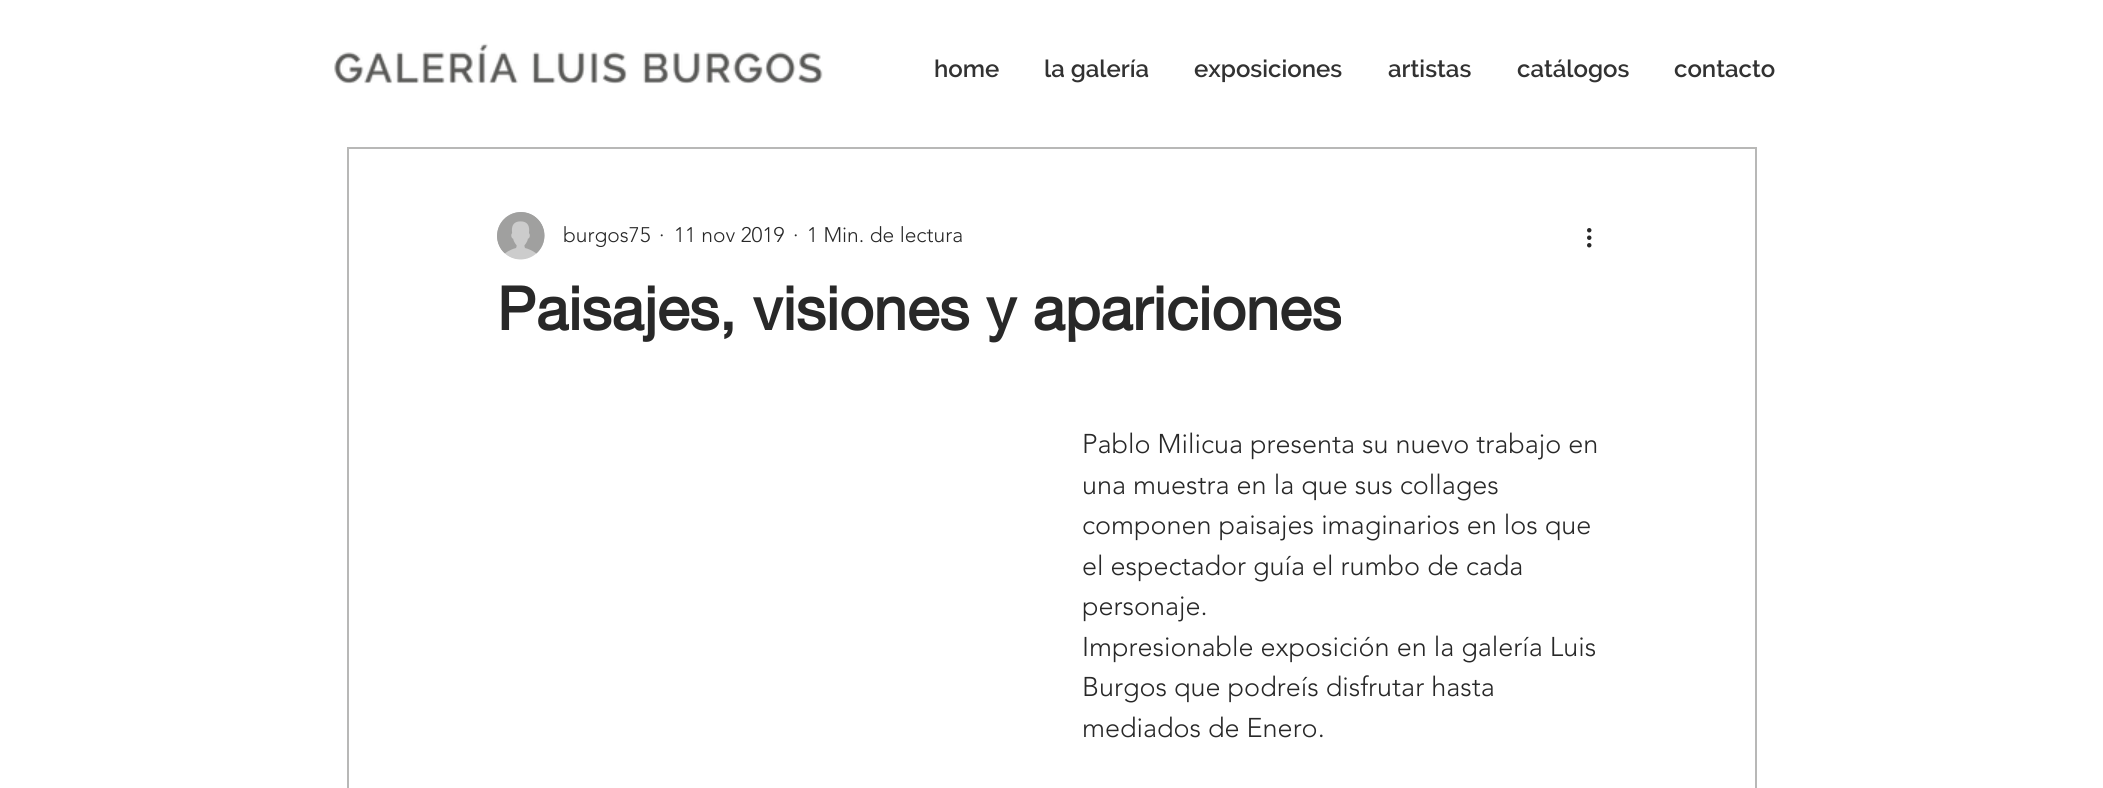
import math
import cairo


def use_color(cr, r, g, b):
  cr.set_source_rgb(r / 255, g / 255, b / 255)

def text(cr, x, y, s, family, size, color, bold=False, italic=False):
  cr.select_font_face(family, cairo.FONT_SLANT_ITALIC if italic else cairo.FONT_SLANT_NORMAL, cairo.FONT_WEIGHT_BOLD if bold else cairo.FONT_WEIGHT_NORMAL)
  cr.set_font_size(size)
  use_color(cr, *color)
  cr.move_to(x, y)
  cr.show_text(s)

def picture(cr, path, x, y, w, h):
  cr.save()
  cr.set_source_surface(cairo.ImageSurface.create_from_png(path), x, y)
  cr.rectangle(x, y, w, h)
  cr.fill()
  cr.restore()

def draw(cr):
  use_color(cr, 255, 255, 255)
  cr.paint()
  picture(cr, "img_01.png", 334, 43, 489, 41)
  cr.rectangle(348, 148, 1408, 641)
  use_color(cr, 184, 184, 183)
  cr.stroke()
  picture(cr, "img_02.png", 497, 212, 48, 48)
  picture(cr, "img_03.png", 1587, 228, 5, 20)
  text(cr, 934, 77, "home", "Raleway SemiBold", 24, (50, 50, 50))
  text(cr, 1044, 77, "la galería", "Raleway SemiBold", 24, (50, 50, 50))
  text(cr, 1194, 77, "exposiciones", "Raleway SemiBold", 24, (50, 50, 50))
  text(cr, 1388, 77, "artistas", "Raleway SemiBold", 24, (50, 50, 50))
  text(cr, 1517, 77, "catálogos", "Raleway SemiBold", 24, (50, 50, 50))
  text(cr, 1674, 77, "contacto", "Raleway SemiBold", 24, (50, 50, 50))
  text(cr, 563, 242, "burgos75", "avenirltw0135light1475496 Light", 21, (40, 40, 40))
  text(cr, 659, 242, "·", "avenirltw0135light1475496 Light", 21, (40, 40, 40))
  text(cr, 674, 242, "11 nov 2019", "avenirltw0135light1475496 Light", 21, (40, 40, 40))
  text(cr, 793, 242, "·", "avenirltw0135light1475496 Light", 21, (40, 40, 40))
  text(cr, 807, 242, "1 Min. de lectura", "avenirltw0135light1475496 Light", 21, (40, 40, 40))
  text(cr, 497, 330, "Paisajes, visiones y apariciones", "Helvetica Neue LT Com", 60, (40, 40, 40), bold=True)
  text(cr, 1082, 453, "Pablo Milicua presenta su nuevo trabajo en", "avenirltw0135light1475496 Light", 27, (40, 40, 40))
  text(cr, 1082, 494, "una muestra en la que sus collages", "avenirltw0135light1475496 Light", 27, (40, 40, 40))
  text(cr, 1082, 534, "componen paisajes imaginarios en los que", "avenirltw0135light1475496 Light", 27, (40, 40, 40))
  text(cr, 1082, 575, "el espectador guía el rumbo de cada", "avenirltw0135light1475496 Light", 27, (40, 40, 40))
  text(cr, 1082, 615, "personaje.", "avenirltw0135light1475496 Light", 27, (40, 40, 40))
  text(cr, 1082, 656, "Impresionable exposición en la galería Luis", "avenirltw0135light1475496 Light", 27, (40, 40, 40))
  text(cr, 1082, 696, "Burgos que podreís disfrutar hasta", "avenirltw0135light1475496 Light", 27, (40, 40, 40))
  text(cr, 1082, 737, "mediados de Enero.", "avenirltw0135light1475496 Light", 27, (40, 40, 40))


surface = cairo.ImageSurface(cairo.FORMAT_RGB24, 2103, 788)
cr = cairo.Context(surface)
options = cairo.FontOptions()
options.set_hint_metrics(cairo.HINT_METRICS_OFF)
options.set_hint_style(cairo.HINT_STYLE_NONE)
cr.set_font_options(options)
cr.set_miter_limit(4)
draw(cr)
surface.write_to_png("out.png")
